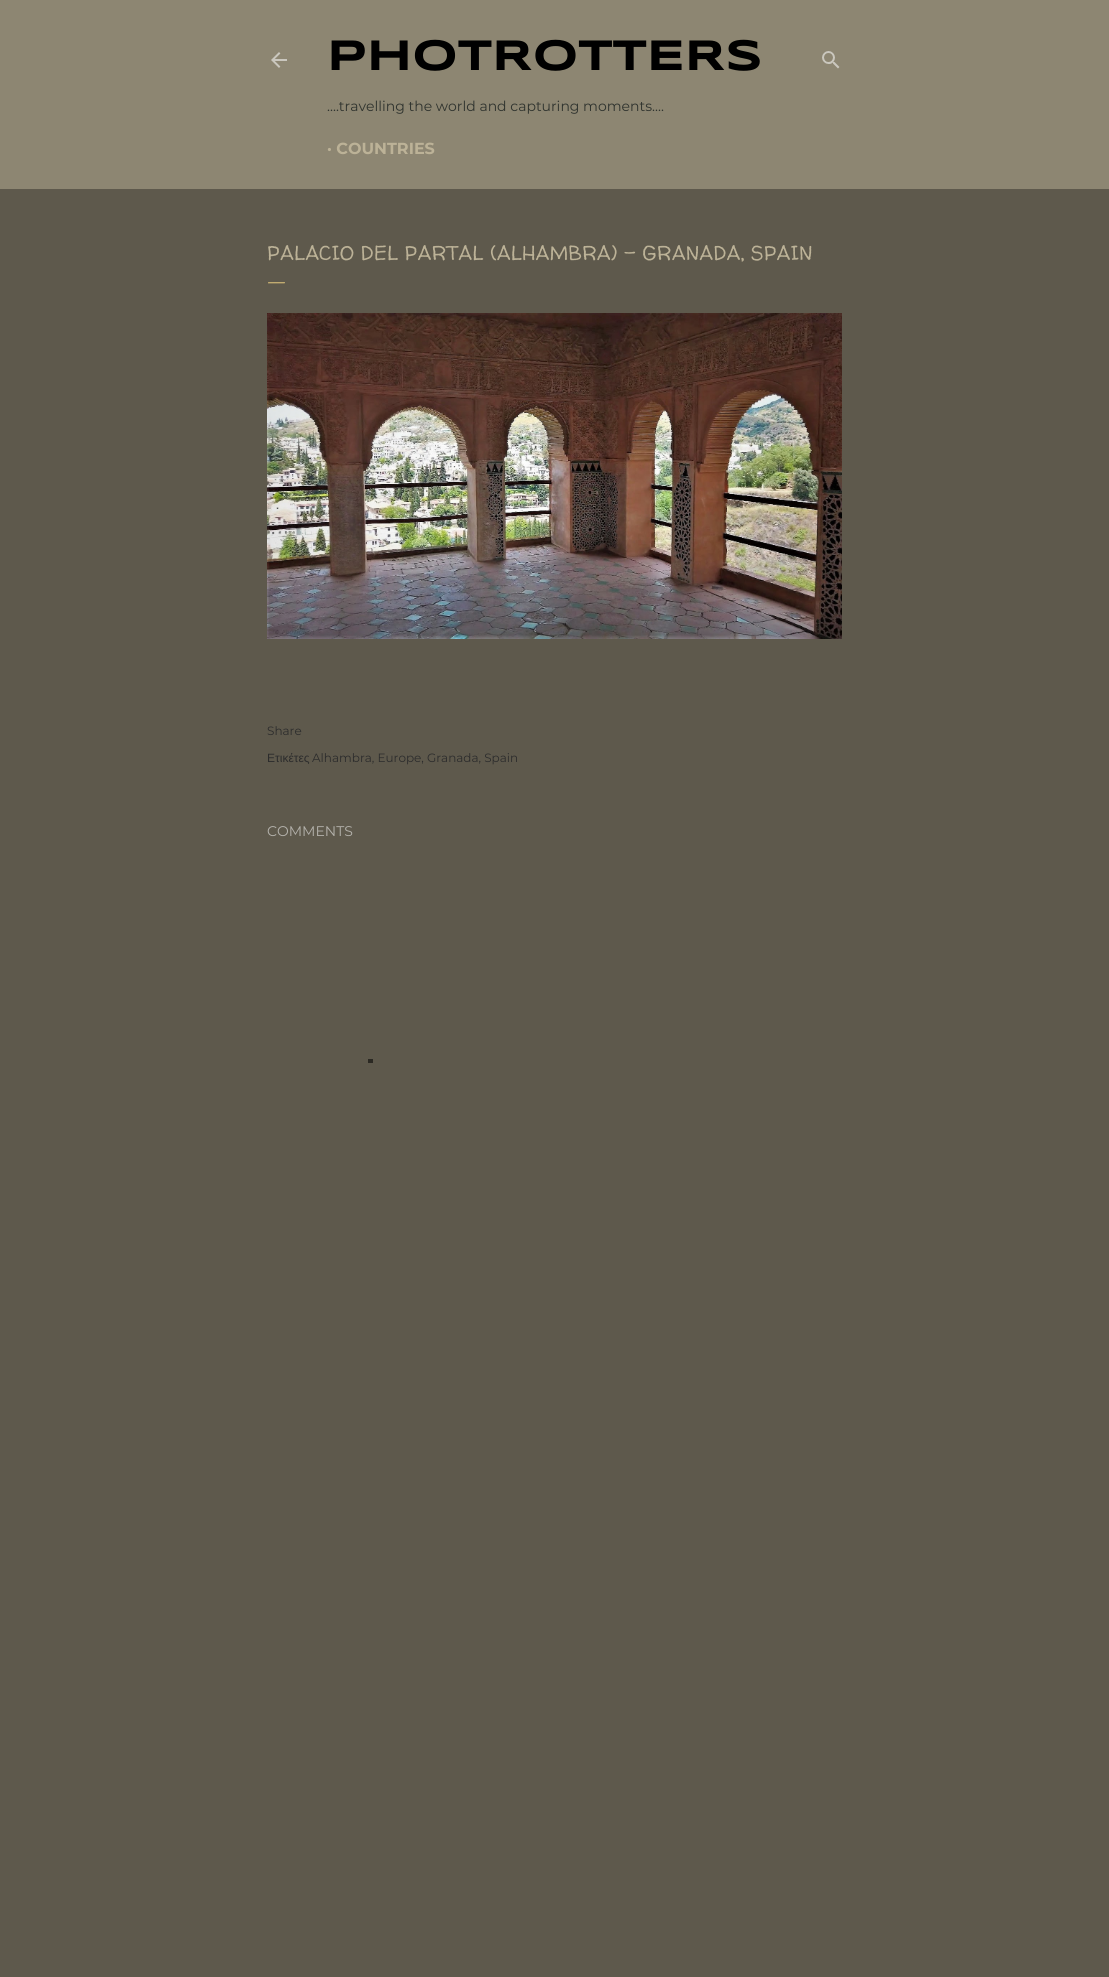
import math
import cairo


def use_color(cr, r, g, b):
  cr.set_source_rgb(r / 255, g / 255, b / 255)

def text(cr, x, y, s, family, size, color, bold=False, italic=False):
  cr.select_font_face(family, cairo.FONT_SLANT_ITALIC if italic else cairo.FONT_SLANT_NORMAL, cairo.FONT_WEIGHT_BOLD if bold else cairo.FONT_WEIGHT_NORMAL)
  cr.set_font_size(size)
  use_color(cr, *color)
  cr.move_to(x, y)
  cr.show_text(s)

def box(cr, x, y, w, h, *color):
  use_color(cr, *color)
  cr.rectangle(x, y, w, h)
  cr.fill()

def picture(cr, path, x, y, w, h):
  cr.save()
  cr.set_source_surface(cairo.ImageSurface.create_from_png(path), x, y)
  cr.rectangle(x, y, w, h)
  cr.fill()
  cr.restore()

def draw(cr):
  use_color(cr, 94, 89, 76)
  cr.paint()
  box(cr, 0, 0, 1109, 189, 141, 134, 114)
  picture(cr, "img_01.png", 271, 52, 16, 16)
  picture(cr, "img_02.png", 822, 51, 18, 18)
  picture(cr, "img_03.png", 267, 313, 575, 326)
  box(cr, 368, 1059, 5, 4, 43, 41, 35)
  text(cr, 327, 70, "PHOTROTTERS", "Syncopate", 44, (0, 0, 0), bold=True)
  text(cr, 327, 111, "....travelling the world and capturing moments....", "Montserrat", 14, (47, 51, 46))
  text(cr, 327, 154, "· COUNTRIES", "Montserrat", 16, (188, 178, 151), bold=True)
  text(cr, 267, 260, "PALACIO DEL PARTAL (ALHAMBRA) - GRANADA, SPAIN", "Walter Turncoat", 20, (188, 178, 151))
  text(cr, 267, 287, "—", "EB Garamond", 20, (221, 194, 122))
  text(cr, 267, 735, "Share", "Montserrat", 12, (44, 44, 44))
  text(cr, 267, 762, "Ετικέτες", "Liberation Sans", 12, (44, 44, 44))
  text(cr, 312, 762, "Alhambra, Europe, Granada, Spain", "Montserrat", 12, (44, 44, 44))
  text(cr, 267, 836, "COMMENTS", "Montserrat", 14, (180, 178, 172))


surface = cairo.ImageSurface(cairo.FORMAT_RGB24, 1109, 1977)
cr = cairo.Context(surface)
options = cairo.FontOptions()
options.set_hint_metrics(cairo.HINT_METRICS_OFF)
options.set_hint_style(cairo.HINT_STYLE_NONE)
cr.set_font_options(options)
cr.set_miter_limit(4)
draw(cr)
surface.write_to_png("out.png")
